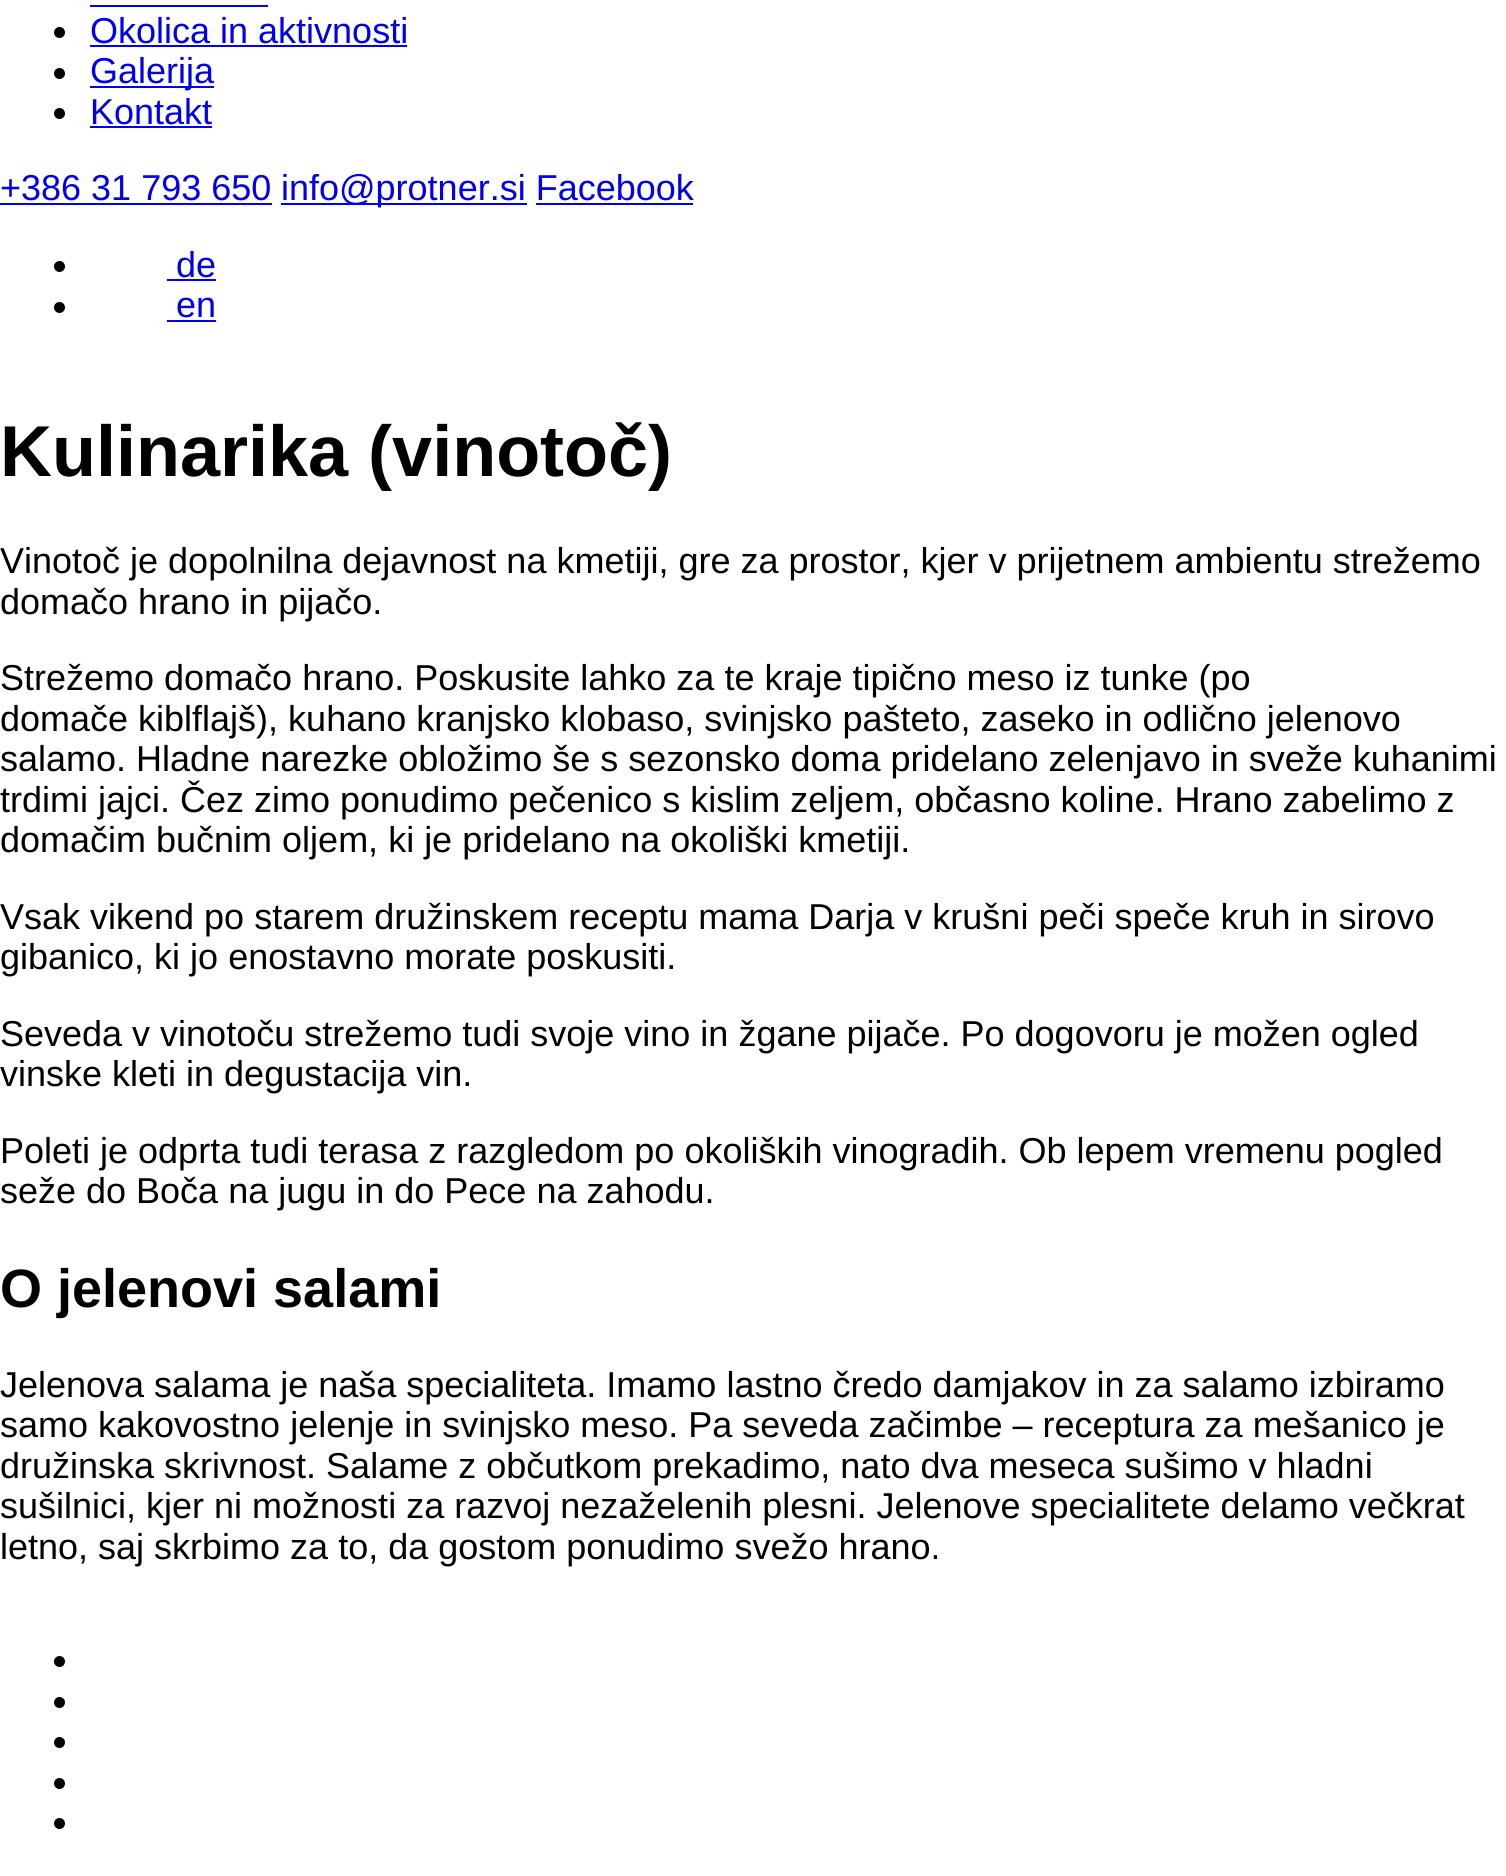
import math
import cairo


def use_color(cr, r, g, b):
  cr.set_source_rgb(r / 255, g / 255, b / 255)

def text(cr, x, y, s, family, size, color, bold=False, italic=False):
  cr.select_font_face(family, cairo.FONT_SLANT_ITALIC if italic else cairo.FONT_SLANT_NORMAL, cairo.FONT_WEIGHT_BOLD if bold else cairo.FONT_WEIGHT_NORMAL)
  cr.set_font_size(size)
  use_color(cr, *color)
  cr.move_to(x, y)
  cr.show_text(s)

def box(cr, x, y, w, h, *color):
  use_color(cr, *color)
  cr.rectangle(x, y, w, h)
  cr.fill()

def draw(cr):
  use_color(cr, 255, 255, 255)
  cr.paint()
  box(cr, 90, 5, 178, 2, 0, 0, 238)
  use_color(cr, 0, 0, 0)
  cr.arc(59.5, 32.5, 5.5, 0, 2 * math.pi)
  cr.fill()
  box(cr, 90, 45, 317, 2, 0, 0, 238)
  use_color(cr, 0, 0, 0)
  cr.arc(59.5, 73.5, 5.5, 0, 2 * math.pi)
  cr.fill()
  box(cr, 90, 86, 124, 2, 0, 0, 238)
  use_color(cr, 0, 0, 0)
  cr.arc(59.5, 113.5, 5.5, 0, 2 * math.pi)
  cr.fill()
  box(cr, 90, 126, 122, 2, 0, 0, 238)
  box(cr, 0, 203, 272, 2, 0, 0, 238)
  box(cr, 281, 203, 246, 2, 0, 0, 238)
  box(cr, 536, 203, 157, 2, 0, 0, 238)
  use_color(cr, 0, 0, 0)
  cr.arc(59.5, 266.5, 5.5, 0, 2 * math.pi)
  cr.fill()
  box(cr, 167, 279, 49, 2, 0, 0, 238)
  use_color(cr, 0, 0, 0)
  cr.arc(59.5, 307.5, 5.5, 0, 2 * math.pi)
  cr.fill()
  box(cr, 167, 320, 49, 2, 0, 0, 238)
  use_color(cr, 0, 0, 0)
  cr.arc(59.5, 1661.5, 5.5, 0, 2 * math.pi)
  cr.fill()
  cr.arc(59.5, 1702.5, 5.5, 0, 2 * math.pi)
  cr.fill()
  cr.arc(59.5, 1742.5, 5.5, 0, 2 * math.pi)
  cr.fill()
  cr.arc(59.5, 1783.5, 5.5, 0, 2 * math.pi)
  cr.fill()
  cr.arc(59.5, 1823.5, 5.5, 0, 2 * math.pi)
  cr.fill()
  text(cr, 90, 43, "Okolica in aktivnosti", "Liberation Sans", 36, (0, 0, 238))
  text(cr, 90, 83, "Galerija", "Liberation Sans", 36, (0, 0, 238))
  text(cr, 90, 124, "Kontakt", "Liberation Sans", 36, (0, 0, 238))
  text(cr, 0, 200, "+386 31 793 650", "Liberation Sans", 36, (0, 0, 238))
  text(cr, 281, 200, "info@protner.si Facebook", "Liberation Sans", 36, (0, 0, 238))
  text(cr, 176, 277, "de", "Liberation Sans", 36, (0, 0, 238))
  text(cr, 176, 317, "en", "Liberation Sans", 36, (0, 0, 238))
  text(cr, 0, 476, "Kulinarika (vinotoč)", "Liberation Sans", 72, (0, 0, 0), bold=True)
  text(cr, 0, 573, "Vinotoč je dopolnilna dejavnost na kmetiji, gre za prostor, kjer v prijetnem ambientu strežemo", "Liberation Sans", 36, (0, 0, 0))
  text(cr, 0, 614, "domačo hrano in pijačo.", "Liberation Sans", 36, (0, 0, 0))
  text(cr, 0, 690, "Strežemo domačo hrano. Poskusite lahko za te kraje tipično meso iz tunke (po", "Liberation Sans", 36, (0, 0, 0))
  text(cr, 0, 731, "domače kiblflajš), kuhano kranjsko klobaso, svinjsko pašteto, zaseko in odlično jelenovo", "Liberation Sans", 36, (0, 0, 0))
  text(cr, 0, 771, "salamo. Hladne narezke obložimo še s sezonsko doma pridelano zelenjavo in sveže kuhanimi", "Liberation Sans", 36, (0, 0, 0))
  text(cr, 0, 812, "trdimi jajci. Čez zimo ponudimo pečenico s kislim zeljem, občasno koline. Hrano zabelimo z", "Liberation Sans", 36, (0, 0, 0))
  text(cr, 0, 852, "domačim bučnim oljem, ki je pridelano na okoliški kmetiji.", "Liberation Sans", 36, (0, 0, 0))
  text(cr, 0, 929, "Vsak vikend po starem družinskem receptu mama Darja v krušni peči speče kruh in sirovo", "Liberation Sans", 36, (0, 0, 0))
  text(cr, 0, 969, "gibanico, ki jo enostavno morate poskusiti.", "Liberation Sans", 36, (0, 0, 0))
  text(cr, 0, 1046, "Seveda v vinotoču strežemo tudi svoje vino in žgane pijače. Po dogovoru je možen ogled", "Liberation Sans", 36, (0, 0, 0))
  text(cr, 0, 1086, "vinske kleti in degustacija vin.", "Liberation Sans", 36, (0, 0, 0))
  text(cr, 0, 1163, "Poleti je odprta tudi terasa z razgledom po okoliških vinogradih. Ob lepem vremenu pogled", "Liberation Sans", 36, (0, 0, 0))
  text(cr, 0, 1203, "seže do Boča na jugu in do Pece na zahodu.", "Liberation Sans", 36, (0, 0, 0))
  text(cr, 0, 1307, "O jelenovi salami", "Liberation Sans", 54, (0, 0, 0), bold=True)
  text(cr, 0, 1397, "Jelenova salama je naša specialiteta. Imamo lastno čredo damjakov in za salamo izbiramo", "Liberation Sans", 36, (0, 0, 0))
  text(cr, 0, 1437, "samo kakovostno jelenje in svinjsko meso. Pa seveda začimbe – receptura za mešanico je", "Liberation Sans", 36, (0, 0, 0))
  text(cr, 0, 1478, "družinska skrivnost. Salame z občutkom prekadimo, nato dva meseca sušimo v hladni", "Liberation Sans", 36, (0, 0, 0))
  text(cr, 0, 1518, "sušilnici, kjer ni možnosti za razvoj nezaželenih plesni. Jelenove specialitete delamo večkrat", "Liberation Sans", 36, (0, 0, 0))
  text(cr, 0, 1559, "letno, saj skrbimo za to, da gostom ponudimo svežo hrano.", "Liberation Sans", 36, (0, 0, 0))


surface = cairo.ImageSurface(cairo.FORMAT_RGB24, 1506, 1876)
cr = cairo.Context(surface)
options = cairo.FontOptions()
options.set_hint_metrics(cairo.HINT_METRICS_OFF)
options.set_hint_style(cairo.HINT_STYLE_NONE)
cr.set_font_options(options)
cr.set_miter_limit(4)
draw(cr)
surface.write_to_png("out.png")
